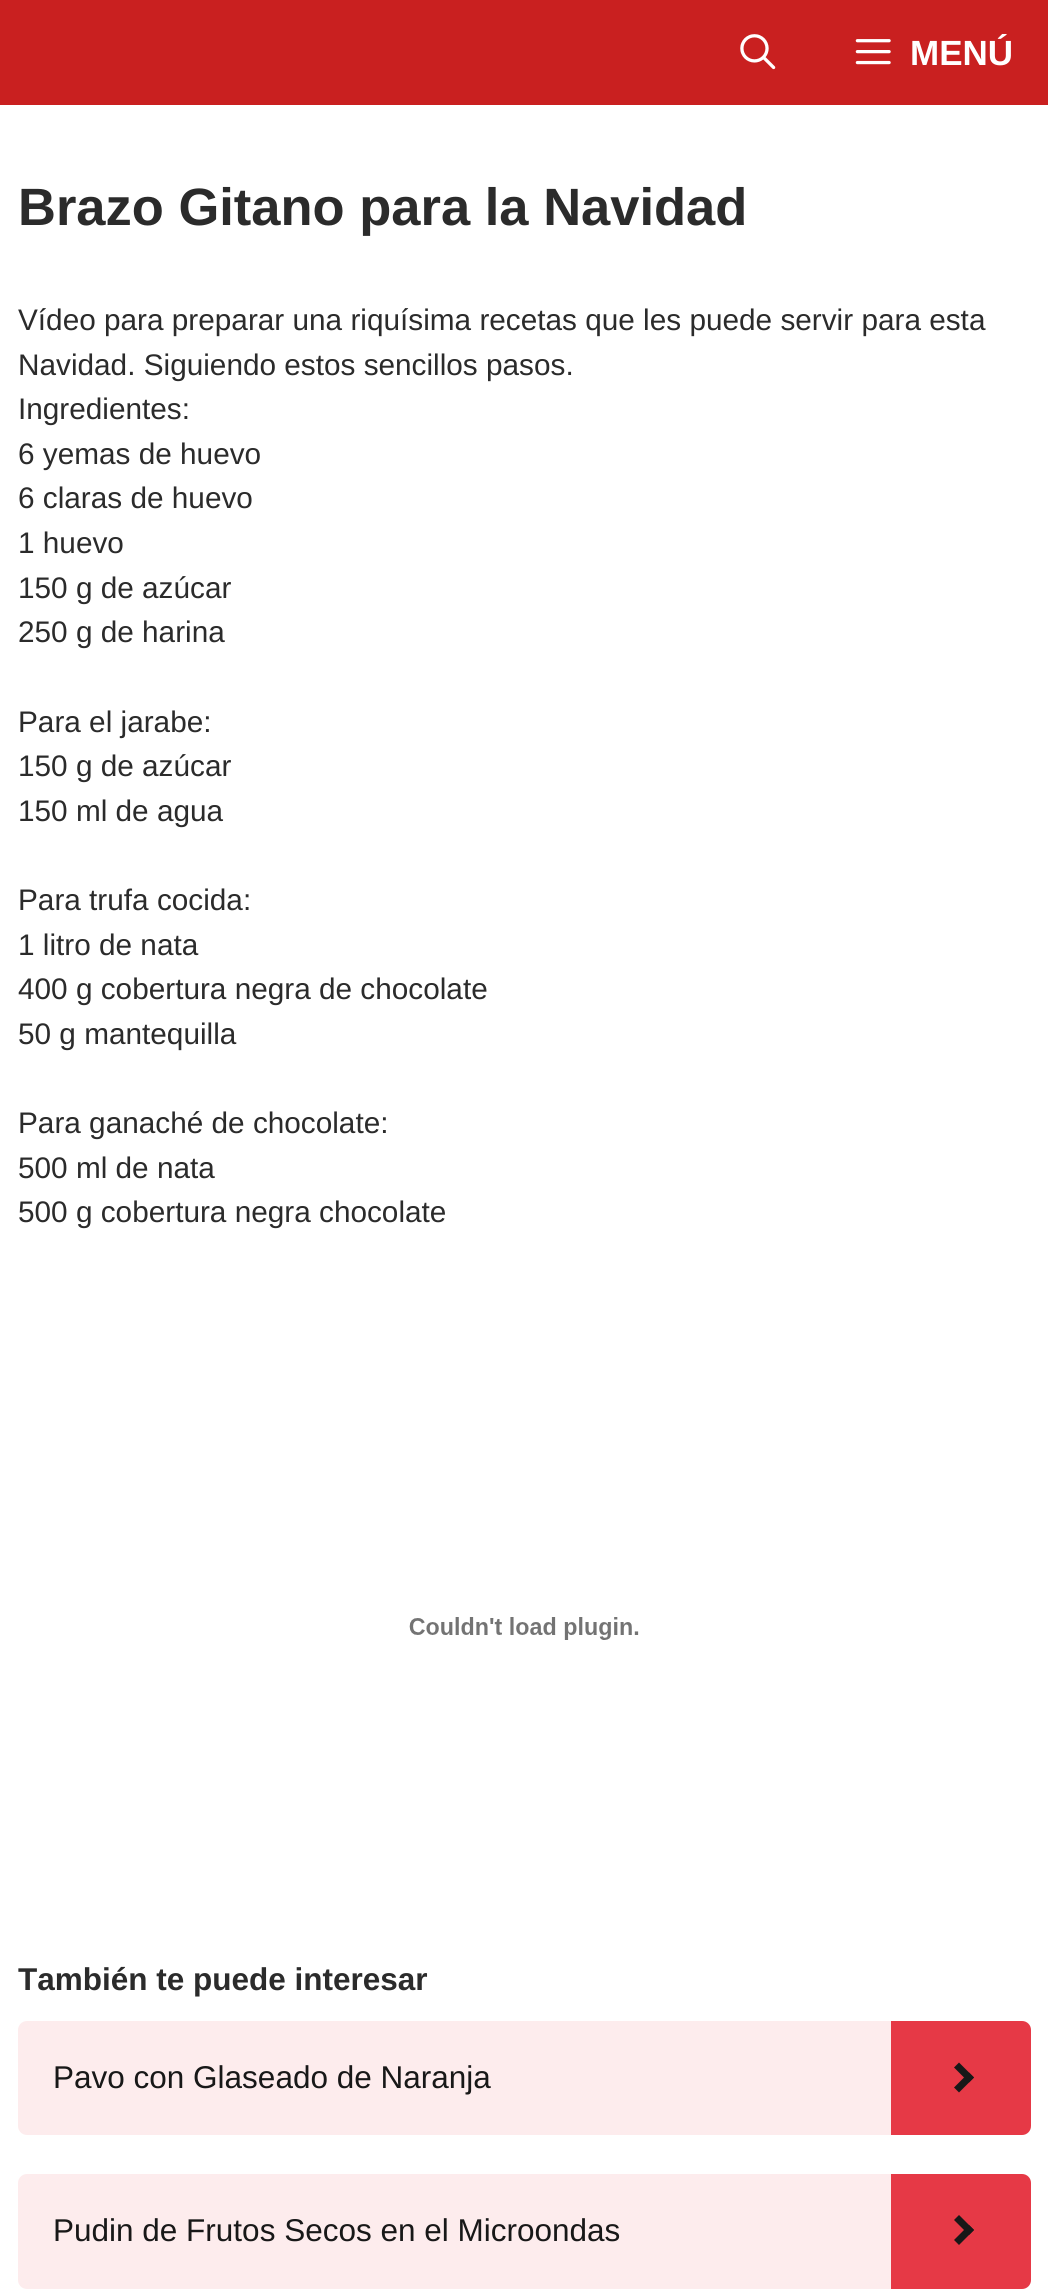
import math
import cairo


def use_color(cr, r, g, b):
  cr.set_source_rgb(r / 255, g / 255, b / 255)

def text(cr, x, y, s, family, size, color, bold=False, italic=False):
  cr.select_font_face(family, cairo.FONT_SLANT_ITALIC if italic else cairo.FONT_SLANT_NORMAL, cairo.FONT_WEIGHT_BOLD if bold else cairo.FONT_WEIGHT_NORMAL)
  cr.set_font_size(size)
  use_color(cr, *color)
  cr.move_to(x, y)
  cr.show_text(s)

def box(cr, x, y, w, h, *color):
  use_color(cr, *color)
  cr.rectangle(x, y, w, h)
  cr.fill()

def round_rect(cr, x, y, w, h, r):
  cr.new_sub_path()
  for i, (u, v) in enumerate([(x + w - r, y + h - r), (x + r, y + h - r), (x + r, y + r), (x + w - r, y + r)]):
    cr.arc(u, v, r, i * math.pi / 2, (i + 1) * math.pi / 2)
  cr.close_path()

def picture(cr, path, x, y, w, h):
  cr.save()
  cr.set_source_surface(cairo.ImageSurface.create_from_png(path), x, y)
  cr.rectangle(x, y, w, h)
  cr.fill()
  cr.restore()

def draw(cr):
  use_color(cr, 255, 255, 255)
  cr.paint()
  box(cr, 0, 0, 1048, 105, 201, 32, 32)
  picture(cr, "img_01.png", 740, 34, 36, 36)
  picture(cr, "img_02.png", 855, 39, 36, 26)
  picture(cr, "img_03.png", 409, 1617, 230, 23)
  use_color(cr, 253, 236, 237)
  round_rect(cr, 18, 2021, 1013, 114, 9)
  cr.fill()
  use_color(cr, 230, 57, 70)
  cr.new_path()
  cr.move_to(891, 2021)
  cr.line_to(1022, 2021)
  cr.curve_to(1027, 2021, 1031, 2025, 1031, 2030)
  cr.line_to(1031, 2126)
  cr.curve_to(1031, 2131, 1027, 2135, 1022, 2135)
  cr.line_to(891, 2135)
  cr.close_path()
  cr.fill()
  use_color(cr, 24, 24, 24)
  cr.new_path()
  cr.move_to(959, 2062.5)
  cr.line_to(974, 2077.5)
  cr.line_to(969, 2082.5)
  cr.line_to(954, 2067.5)
  cr.close_path()
  cr.fill()
  cr.new_path()
  cr.move_to(969, 2072.5)
  cr.line_to(974, 2077.5)
  cr.line_to(959, 2092.5)
  cr.line_to(954, 2087.5)
  cr.close_path()
  cr.fill()
  use_color(cr, 253, 236, 237)
  round_rect(cr, 18, 2174, 1013, 115, 9)
  cr.fill()
  use_color(cr, 230, 57, 70)
  cr.new_path()
  cr.move_to(891, 2174)
  cr.line_to(1022, 2174)
  cr.curve_to(1027, 2174, 1031, 2178, 1031, 2183)
  cr.line_to(1031, 2280)
  cr.curve_to(1031, 2285, 1027, 2289, 1022, 2289)
  cr.line_to(891, 2289)
  cr.close_path()
  cr.fill()
  use_color(cr, 24, 24, 24)
  cr.new_path()
  cr.move_to(959, 2215)
  cr.line_to(974, 2230)
  cr.line_to(969, 2235)
  cr.line_to(954, 2220)
  cr.close_path()
  cr.fill()
  cr.new_path()
  cr.move_to(969, 2225)
  cr.line_to(974, 2230)
  cr.line_to(959, 2245)
  cr.line_to(954, 2240)
  cr.close_path()
  cr.fill()
  text(cr, 910, 65, "MENÚ", "Liberation Sans", 35, (255, 255, 255), bold=True)
  text(cr, 18, 225, "Brazo Gitano para la Navidad", "Liberation Sans", 52.5, (43, 43, 43), bold=True)
  text(cr, 18, 330, "Vídeo para preparar una riquísima recetas que les puede servir para esta", "Liberation Sans", 29.75, (43, 43, 43))
  text(cr, 18, 375, "Navidad. Siguiendo estos sencillos pasos.", "Liberation Sans", 29.75, (43, 43, 43))
  text(cr, 18, 419, "Ingredientes:", "Liberation Sans", 29.75, (43, 43, 43))
  text(cr, 18, 464, "6 yemas de huevo", "Liberation Sans", 29.75, (43, 43, 43))
  text(cr, 18, 508, "6 claras de huevo", "Liberation Sans", 29.75, (43, 43, 43))
  text(cr, 18, 553, "1 huevo", "Liberation Sans", 29.75, (43, 43, 43))
  text(cr, 18, 598, "150 g de azúcar", "Liberation Sans", 29.75, (43, 43, 43))
  text(cr, 18, 642, "250 g de harina", "Liberation Sans", 29.75, (43, 43, 43))
  text(cr, 18, 732, "Para el jarabe:", "Liberation Sans", 29.75, (43, 43, 43))
  text(cr, 18, 776, "150 g de azúcar", "Liberation Sans", 29.75, (43, 43, 43))
  text(cr, 18, 821, "150 ml de agua", "Liberation Sans", 29.75, (43, 43, 43))
  text(cr, 18, 910, "Para trufa cocida:", "Liberation Sans", 29.75, (43, 43, 43))
  text(cr, 18, 955, "1 litro de nata", "Liberation Sans", 29.75, (43, 43, 43))
  text(cr, 18, 999, "400 g cobertura negra de chocolate", "Liberation Sans", 29.75, (43, 43, 43))
  text(cr, 18, 1044, "50 g mantequilla", "Liberation Sans", 29.75, (43, 43, 43))
  text(cr, 18, 1133, "Para ganaché de chocolate:", "Liberation Sans", 29.75, (43, 43, 43))
  text(cr, 18, 1178, "500 ml de nata", "Liberation Sans", 29.75, (43, 43, 43))
  text(cr, 18, 1222, "500 g cobertura negra chocolate", "Liberation Sans", 29.75, (43, 43, 43))
  text(cr, 18, 1990, "También te puede interesar", "Liberation Sans", 31.5, (43, 43, 43), bold=True)
  text(cr, 53, 2088, "Pavo con Glaseado de Naranja", "Liberation Sans", 31.5, (24, 24, 24))
  text(cr, 53, 2241, "Pudin de Frutos Secos en el Microondas", "Liberation Sans", 31.5, (24, 24, 24))


surface = cairo.ImageSurface(cairo.FORMAT_RGB24, 1048, 2290)
cr = cairo.Context(surface)
options = cairo.FontOptions()
options.set_hint_metrics(cairo.HINT_METRICS_OFF)
options.set_hint_style(cairo.HINT_STYLE_NONE)
cr.set_font_options(options)
cr.set_miter_limit(4)
draw(cr)
surface.write_to_png("out.png")
